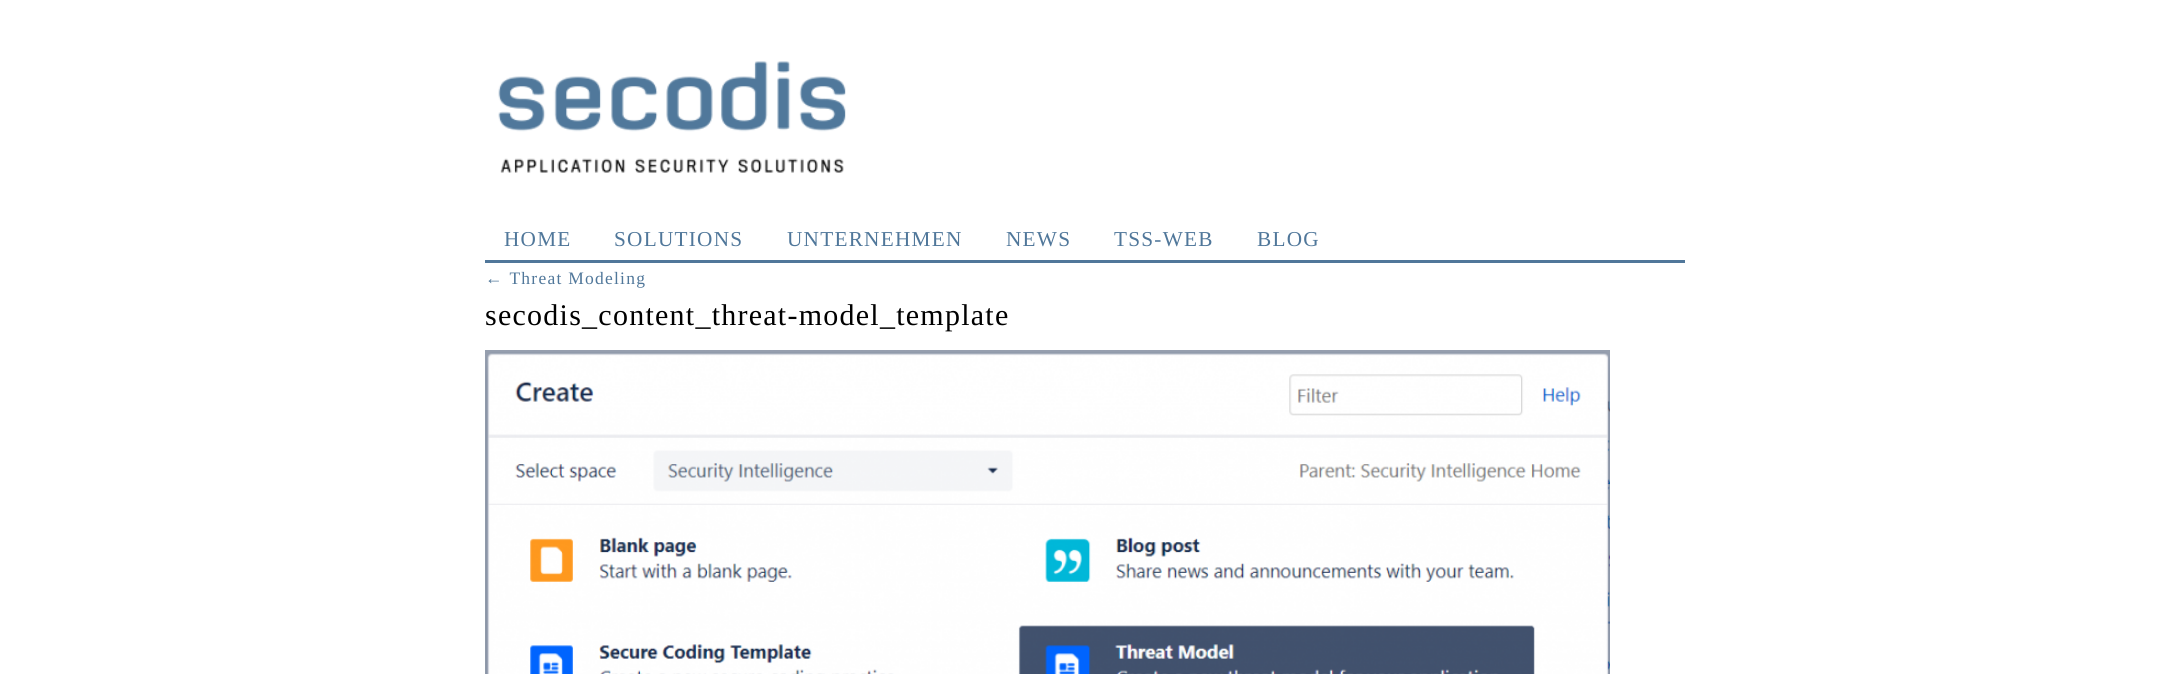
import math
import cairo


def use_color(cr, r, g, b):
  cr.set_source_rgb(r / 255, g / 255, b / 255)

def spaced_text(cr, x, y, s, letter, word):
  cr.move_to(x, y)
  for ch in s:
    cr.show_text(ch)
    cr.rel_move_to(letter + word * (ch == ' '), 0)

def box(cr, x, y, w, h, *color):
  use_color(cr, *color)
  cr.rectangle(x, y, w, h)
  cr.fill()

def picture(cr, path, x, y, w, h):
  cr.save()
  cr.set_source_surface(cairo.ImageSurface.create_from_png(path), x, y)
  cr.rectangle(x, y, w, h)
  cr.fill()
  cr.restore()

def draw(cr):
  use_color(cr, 255, 255, 255)
  cr.paint()
  picture(cr, "img_01.png", 498, 61, 348, 112)
  box(cr, 485, 260, 1200, 3, 80, 119, 154)
  picture(cr, "img_02.png", 485, 350, 1125, 324)
  cr.select_font_face("Liberation Serif")
  cr.set_font_size(21.25)
  spaced_text(cr, 504, 246, "HOME", 1.25, 0)
  spaced_text(cr, 614, 246, "SOLUTIONS", 1.25, 0)
  spaced_text(cr, 787, 246, "UNTERNEHMEN", 1.25, 0)
  spaced_text(cr, 1006, 246, "NEWS", 1.25, 0)
  spaced_text(cr, 1114, 246, "TSS-WEB", 1.25, 0)
  spaced_text(cr, 1257, 246, "BLOG", 1.25, 0)
  cr.set_font_size(17.5)
  spaced_text(cr, 485, 284, "← Threat Modeling", 1.25, 0)
  cr.set_font_size(30)
  use_color(cr, 0, 0, 0)
  spaced_text(cr, 485, 325, "secodis_content_threat-model_template", 1.25, 0)


surface = cairo.ImageSurface(cairo.FORMAT_RGB24, 2169, 674)
cr = cairo.Context(surface)
options = cairo.FontOptions()
options.set_hint_metrics(cairo.HINT_METRICS_OFF)
options.set_hint_style(cairo.HINT_STYLE_NONE)
cr.set_font_options(options)
cr.set_miter_limit(4)
draw(cr)
surface.write_to_png("out.png")
